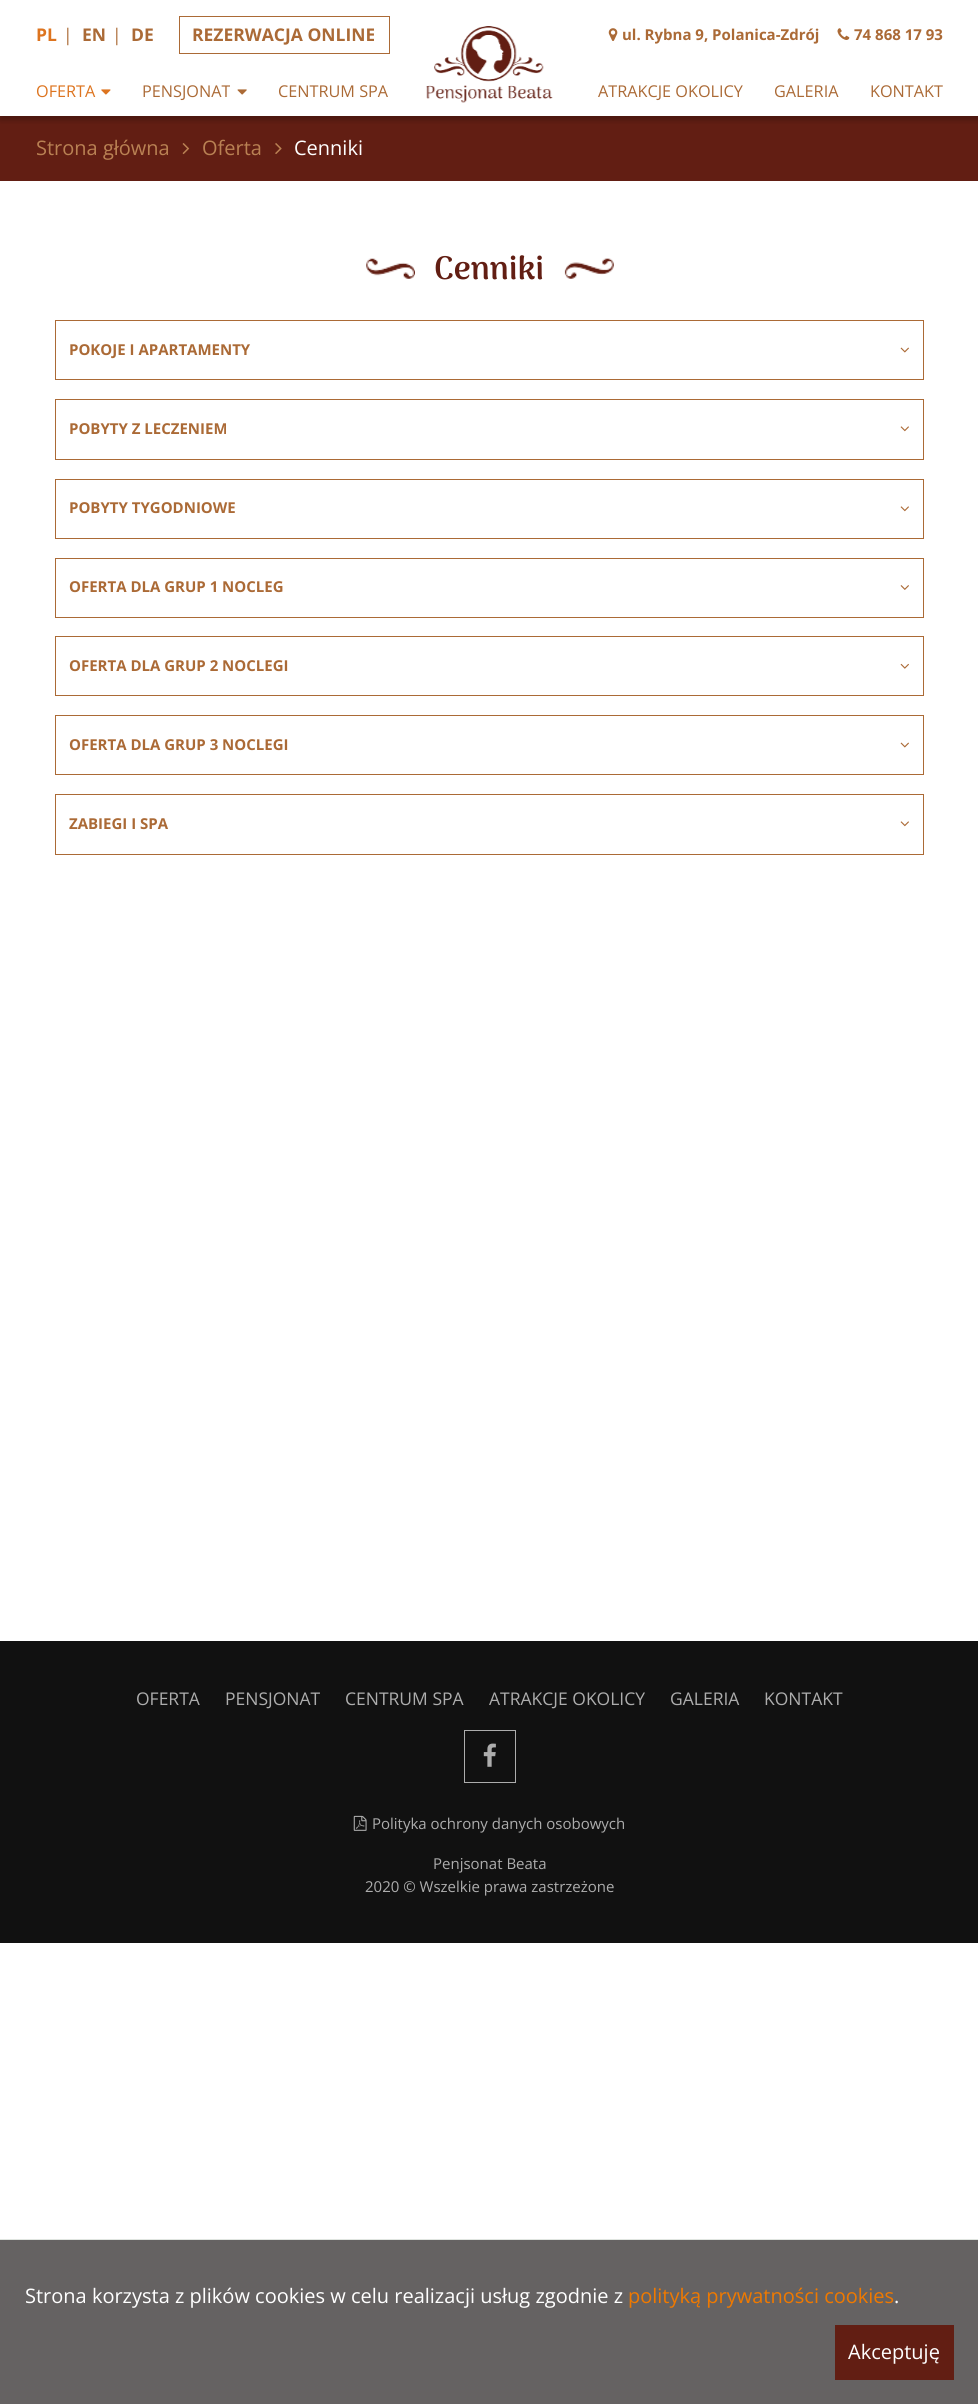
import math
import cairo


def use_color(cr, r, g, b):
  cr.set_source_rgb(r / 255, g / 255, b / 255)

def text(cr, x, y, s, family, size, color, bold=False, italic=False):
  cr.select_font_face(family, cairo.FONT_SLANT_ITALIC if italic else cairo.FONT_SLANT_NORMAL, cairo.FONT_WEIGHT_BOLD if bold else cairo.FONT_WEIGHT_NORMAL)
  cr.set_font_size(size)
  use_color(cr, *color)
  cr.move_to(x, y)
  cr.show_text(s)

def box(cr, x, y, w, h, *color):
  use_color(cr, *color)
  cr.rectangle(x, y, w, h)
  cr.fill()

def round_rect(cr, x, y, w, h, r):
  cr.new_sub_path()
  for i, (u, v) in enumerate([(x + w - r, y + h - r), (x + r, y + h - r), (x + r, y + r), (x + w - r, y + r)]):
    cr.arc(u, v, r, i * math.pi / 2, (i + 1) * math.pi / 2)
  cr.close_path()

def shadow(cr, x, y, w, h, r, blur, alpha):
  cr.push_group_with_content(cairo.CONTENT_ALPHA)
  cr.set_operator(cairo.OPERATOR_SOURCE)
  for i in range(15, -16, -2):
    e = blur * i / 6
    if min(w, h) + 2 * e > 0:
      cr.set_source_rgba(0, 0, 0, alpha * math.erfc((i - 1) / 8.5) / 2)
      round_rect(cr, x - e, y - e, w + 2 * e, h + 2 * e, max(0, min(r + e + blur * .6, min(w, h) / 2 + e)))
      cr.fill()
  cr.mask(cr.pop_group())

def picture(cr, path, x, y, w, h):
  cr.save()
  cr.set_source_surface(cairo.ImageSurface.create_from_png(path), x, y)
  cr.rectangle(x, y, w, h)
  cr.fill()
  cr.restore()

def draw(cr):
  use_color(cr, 255, 255, 255)
  cr.paint()
  box(cr, 0, 116, 978, 65, 98, 30, 19)
  cr.save()
  cr.rectangle(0, 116, 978, 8)
  cr.clip()
  use_color(cr, 0, 0, 0)
  shadow(cr, 0, 4, 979, 116, 0, 3, 0.25)
  cr.restore()
  picture(cr, "img_01.png", 426, 26, 127, 77)
  cr.rectangle(179.5, 16.5, 210, 37)
  use_color(cr, 171, 106, 54)
  cr.set_line_width(1)
  cr.stroke()
  picture(cr, "img_02.png", 608, 28, 10, 13)
  picture(cr, "img_03.png", 837, 28, 13, 12)
  picture(cr, "img_04.png", 101, 89, 10, 6)
  picture(cr, "img_05.png", 237, 89, 10, 6)
  picture(cr, "img_06.png", 182, 143, 8, 12)
  picture(cr, "img_07.png", 275, 143, 7, 11)
  picture(cr, "img_08.png", 366, 258, 49, 21)
  picture(cr, "img_09.png", 564, 258, 50, 21)
  cr.rectangle(55.5, 320.5, 868, 59)
  cr.stroke()
  picture(cr, "img_10.png", 900, 347, 9, 6)
  cr.rectangle(55.5, 399.5, 868, 60)
  cr.stroke()
  picture(cr, "img_11.png", 900, 426, 9, 6)
  cr.rectangle(55.5, 479.5, 868, 59)
  cr.stroke()
  picture(cr, "img_11.png", 900, 506, 9, 6)
  cr.rectangle(55.5, 558.5, 868, 59)
  cr.stroke()
  picture(cr, "img_12.png", 900, 585, 9, 5)
  cr.rectangle(55.5, 636.5, 868, 59)
  cr.stroke()
  picture(cr, "img_13.png", 900, 663, 9, 6)
  cr.rectangle(55.5, 715.5, 868, 59)
  cr.stroke()
  picture(cr, "img_10.png", 900, 742, 9, 6)
  cr.rectangle(55.5, 794.5, 868, 60)
  cr.stroke()
  picture(cr, "img_11.png", 900, 821, 9, 6)
  box(cr, 0, 1641, 978, 302, 17, 17, 17)
  cr.rectangle(464.5, 1730.5, 51, 52)
  use_color(cr, 173, 173, 173)
  cr.stroke()
  picture(cr, "img_14.png", 483, 1743, 13, 24)
  picture(cr, "img_15.png", 353, 1815, 14, 16)
  box(cr, 0, 2240, 978, 164, 101, 98, 98)
  box(cr, 0, 2239, 978, 1, 224, 229, 224)
  box(cr, 835, 2325, 119, 55, 98, 30, 19)
  text(cr, 36, 41, "PL", "Open Sans", 17.5, (221, 116, 31), bold=True)
  text(cr, 63, 41, "|", "Open Sans", 17.5, (171, 106, 54))
  text(cr, 82, 41, "EN", "Open Sans", 17.5, (171, 106, 54), bold=True)
  text(cr, 112, 41, "|", "Open Sans", 17.5, (171, 106, 54))
  text(cr, 131, 41, "DE", "Open Sans", 17.5, (171, 106, 54), bold=True)
  text(cr, 192, 41, "REZERWACJA ONLINE", "Open Sans", 17.5, (171, 106, 54), bold=True)
  text(cr, 622, 40, "ul. Rybna 9, Polanica-Zdrój", "Open Sans", 15, (171, 106, 54), bold=True)
  text(cr, 854, 40, "74 868 17 93", "Open Sans", 15, (171, 106, 54), bold=True)
  text(cr, 36, 97, "OFERTA", "Open Sans", 16.25, (221, 116, 31))
  text(cr, 142, 97, "PENSJONAT", "Open Sans", 16.25, (171, 106, 54))
  text(cr, 278, 97, "CENTRUM SPA", "Open Sans", 16.25, (171, 106, 54))
  text(cr, 598, 97, "ATRAKCJE OKOLICY", "Open Sans", 16.25, (171, 106, 54))
  text(cr, 774, 97, "GALERIA", "Open Sans", 16.25, (171, 106, 54))
  text(cr, 870, 97, "KONTAKT", "Open Sans", 16.25, (171, 106, 54))
  text(cr, 36, 155, "Strona główna", "Open Sans", 20, (185, 129, 83))
  text(cr, 202, 155, "Oferta", "Open Sans", 20, (185, 129, 83))
  text(cr, 294, 155, "Cenniki", "Open Sans", 20, (255, 255, 255))
  text(cr, 434, 279, "Cenniki", "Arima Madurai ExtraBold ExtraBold", 32.5, (98, 30, 19))
  text(cr, 69, 355, "POKOJE I APARTAMENTY", "Open Sans", 15, (171, 106, 54), bold=True)
  text(cr, 69, 434, "POBYTY Z LECZENIEM", "Open Sans", 15, (171, 106, 54), bold=True)
  text(cr, 69, 513, "POBYTY TYGODNIOWE", "Open Sans", 15, (171, 106, 54), bold=True)
  text(cr, 69, 592, "OFERTA DLA GRUP 1 NOCLEG", "Open Sans", 15, (171, 106, 54), bold=True)
  text(cr, 69, 671, "OFERTA DLA GRUP 2 NOCLEGI", "Open Sans", 15, (171, 106, 54), bold=True)
  text(cr, 69, 750, "OFERTA DLA GRUP 3 NOCLEGI", "Open Sans", 15, (171, 106, 54), bold=True)
  text(cr, 69, 829, "ZABIEGI I SPA", "Open Sans", 15, (171, 106, 54), bold=True)
  text(cr, 136, 1705, "OFERTA", "Open Sans", 17.5, (173, 173, 173))
  text(cr, 225, 1705, "PENSJONAT", "Open Sans", 17.5, (173, 173, 173))
  text(cr, 345, 1705, "CENTRUM SPA", "Open Sans", 17.5, (173, 173, 173))
  text(cr, 489, 1705, "ATRAKCJE OKOLICY", "Open Sans", 17.5, (173, 173, 173))
  text(cr, 670, 1705, "GALERIA", "Open Sans", 17.5, (173, 173, 173))
  text(cr, 764, 1705, "KONTAKT", "Open Sans", 17.5, (173, 173, 173))
  text(cr, 372, 1829, "Polityka ochrony danych osobowych", "Open Sans", 15, (173, 173, 173))
  text(cr, 433, 1869, "Penjsonat Beata", "Open Sans", 15, (173, 173, 173))
  text(cr, 365, 1892, "2020 © Wszelkie prawa zastrzeżone", "Open Sans", 15, (173, 173, 173))
  text(cr, 25, 2303, "Strona korzysta z plików cookies w celu realizacji usług zgodnie z", "Open Sans", 20, (255, 255, 255))
  text(cr, 628, 2303, "polityką prywatności cookies", "Open Sans", 20, (239, 121, 0))
  text(cr, 894, 2303, ".", "Open Sans", 20, (255, 255, 255))
  text(cr, 848, 2359, "Akceptuję", "Open Sans", 20, (255, 255, 255))


surface = cairo.ImageSurface(cairo.FORMAT_RGB24, 978, 2404)
cr = cairo.Context(surface)
options = cairo.FontOptions()
options.set_hint_metrics(cairo.HINT_METRICS_OFF)
options.set_hint_style(cairo.HINT_STYLE_NONE)
cr.set_font_options(options)
cr.set_miter_limit(4)
draw(cr)
surface.write_to_png("out.png")
